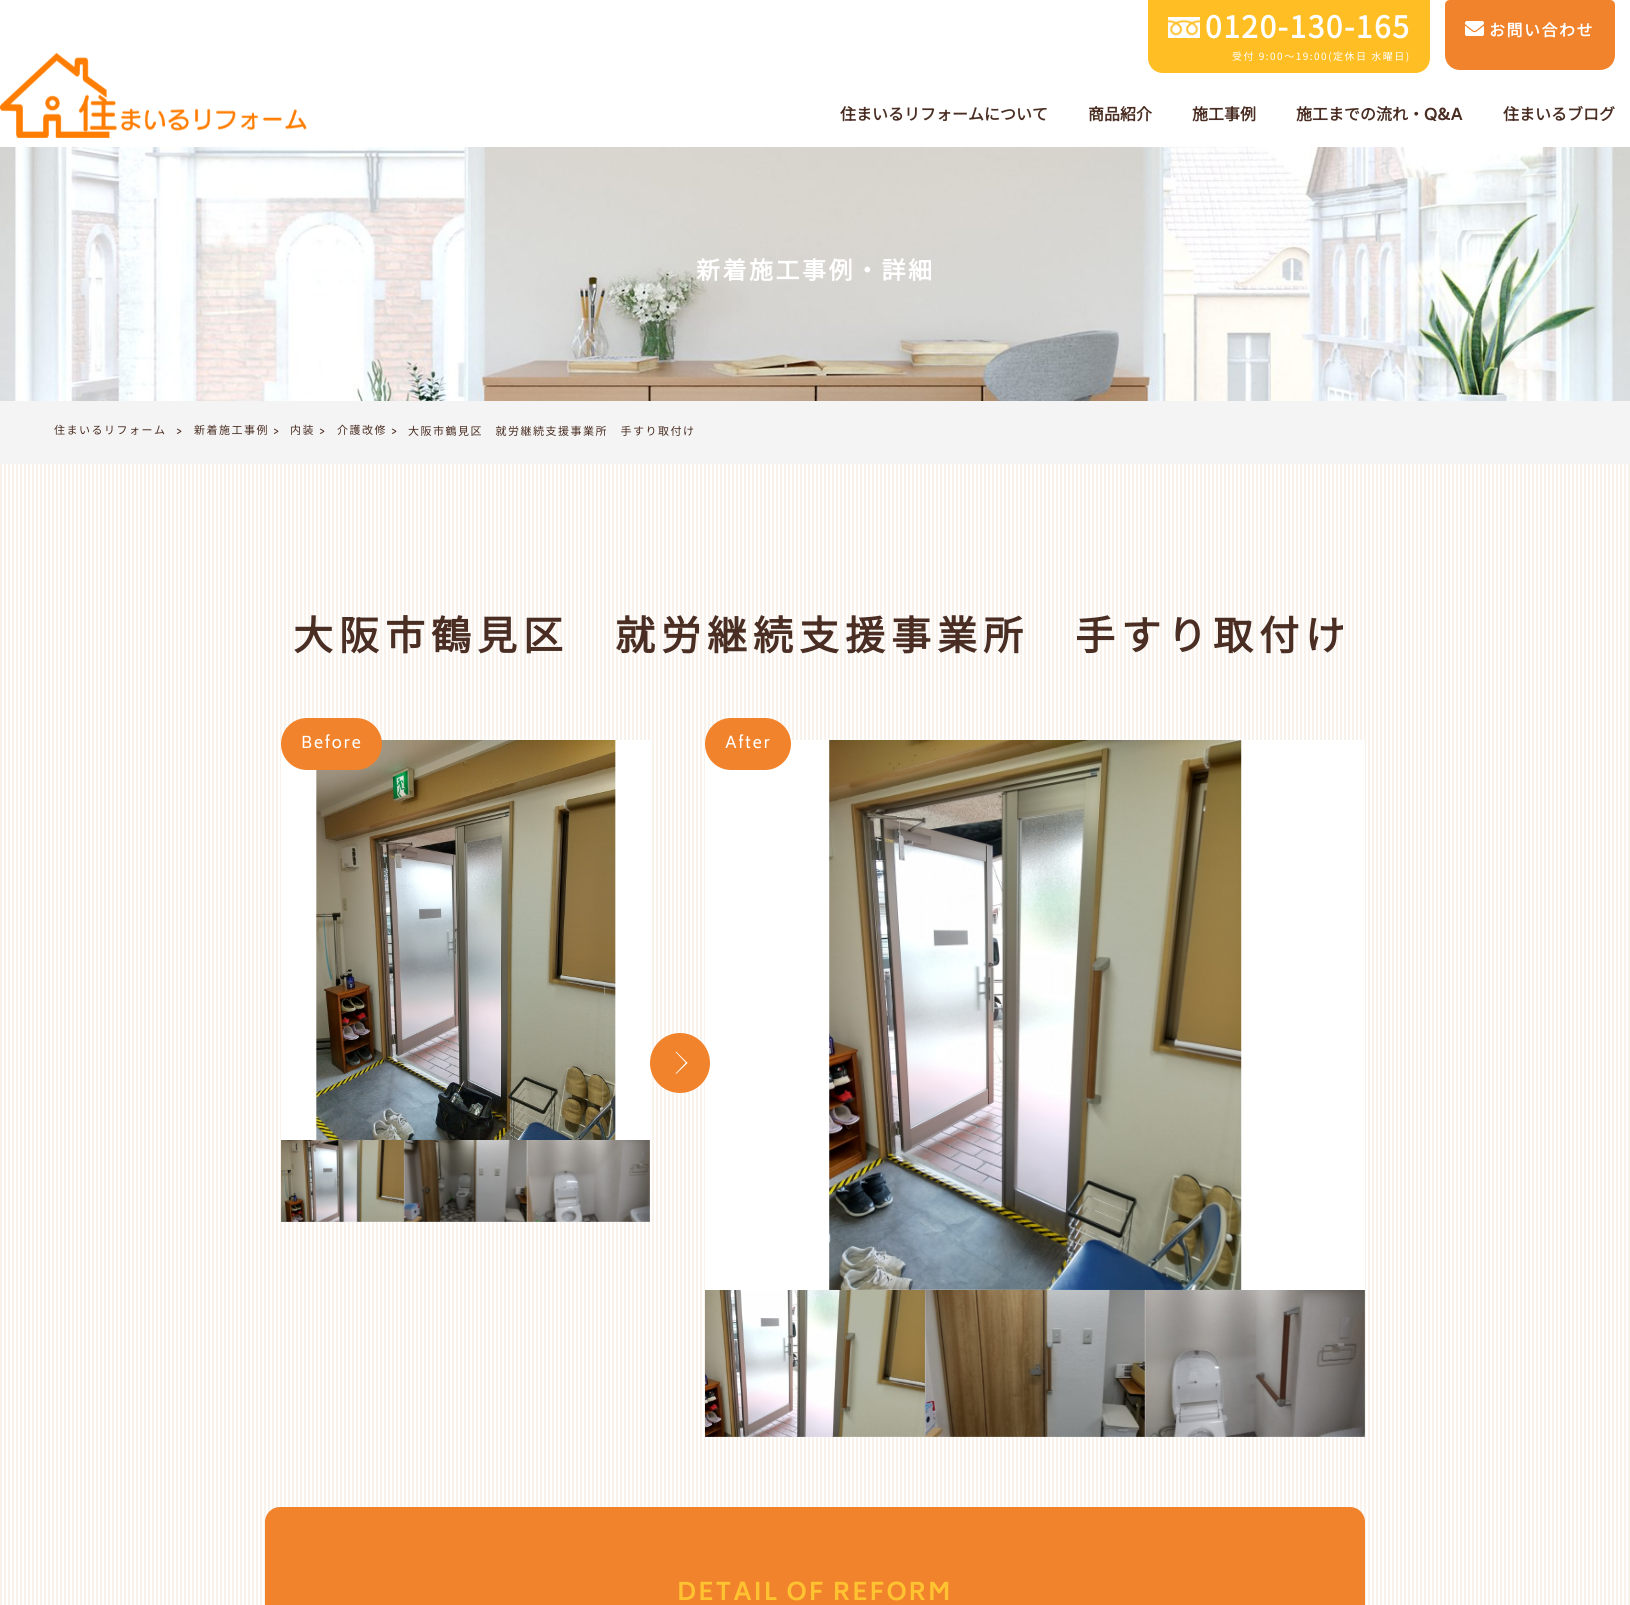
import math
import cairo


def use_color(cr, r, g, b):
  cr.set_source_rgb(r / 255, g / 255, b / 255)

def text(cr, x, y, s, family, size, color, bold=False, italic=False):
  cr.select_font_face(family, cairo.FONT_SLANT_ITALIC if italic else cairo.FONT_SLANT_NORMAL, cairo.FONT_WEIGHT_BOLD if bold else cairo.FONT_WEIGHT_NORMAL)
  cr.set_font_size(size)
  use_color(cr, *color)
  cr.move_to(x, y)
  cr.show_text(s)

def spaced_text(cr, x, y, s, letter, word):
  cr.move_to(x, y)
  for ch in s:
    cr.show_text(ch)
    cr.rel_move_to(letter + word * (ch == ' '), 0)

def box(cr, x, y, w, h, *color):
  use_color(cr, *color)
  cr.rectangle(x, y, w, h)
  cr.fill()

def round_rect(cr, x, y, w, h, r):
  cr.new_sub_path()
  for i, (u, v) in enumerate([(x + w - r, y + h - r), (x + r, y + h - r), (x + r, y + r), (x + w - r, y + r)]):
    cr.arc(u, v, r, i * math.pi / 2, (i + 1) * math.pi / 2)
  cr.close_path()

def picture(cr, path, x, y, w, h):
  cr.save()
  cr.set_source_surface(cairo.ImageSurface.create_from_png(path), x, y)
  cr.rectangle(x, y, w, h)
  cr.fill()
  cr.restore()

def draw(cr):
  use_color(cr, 255, 255, 255)
  cr.paint()
  picture(cr, "img_01.png", 0, 52, 307, 86)
  use_color(cr, 255, 190, 35)
  cr.new_path()
  cr.move_to(1148, 0)
  cr.line_to(1430, 0)
  cr.line_to(1430, 58)
  cr.curve_to(1430, 66.5, 1423.5, 73, 1415, 73)
  cr.line_to(1163, 73)
  cr.curve_to(1154.5, 73, 1148, 66.5, 1148, 58)
  cr.close_path()
  cr.fill()
  picture(cr, "img_02.png", 1168, 17, 32, 21)
  use_color(cr, 241, 131, 44)
  cr.new_path()
  cr.move_to(1450, 0)
  cr.line_to(1610, 0)
  cr.curve_to(1613, 0, 1615, 2, 1615, 5)
  cr.line_to(1615, 55)
  cr.curve_to(1615, 63.5, 1608.5, 70, 1600, 70)
  cr.line_to(1460, 70)
  cr.curve_to(1451.5, 70, 1445, 63.5, 1445, 55)
  cr.line_to(1445, 5)
  cr.curve_to(1445, 2, 1447, 0, 1450, 0)
  cr.close_path()
  cr.fill()
  picture(cr, "img_03.png", 1465, 21, 19, 15)
  picture(cr, "img_04.png", 0, 147, 1630, 254)
  box(cr, 0, 401, 1630, 63, 244, 244, 244)
  picture(cr, "img_05.png", 0, 464, 1630, 1141)
  box(cr, 281, 740, 369, 400, 255, 255, 255)
  picture(cr, "img_06.png", 316, 740, 300, 400)
  use_color(cr, 241, 131, 44)
  round_rect(cr, 281, 718, 101, 52, 26)
  cr.fill()
  box(cr, 705, 740, 660, 550, 255, 255, 255)
  use_color(cr, 241, 131, 44)
  cr.arc(680, 1063, 30, 0, 2 * math.pi)
  cr.fill()
  use_color(cr, 255, 255, 255)
  cr.new_path()
  cr.move_to(676, 1051.5)
  cr.line_to(687.5, 1063)
  cr.line_to(686.5, 1063.5)
  cr.line_to(675.5, 1052)
  cr.close_path()
  cr.fill()
  cr.new_path()
  cr.move_to(686.5, 1062)
  cr.line_to(687.5, 1063)
  cr.line_to(676, 1074)
  cr.line_to(675.5, 1073.5)
  cr.close_path()
  cr.fill()
  picture(cr, "img_07.png", 281, 1140, 123, 82)
  picture(cr, "img_08.png", 403, 1140, 124, 82)
  picture(cr, "img_09.png", 526, 1140, 124, 82)
  use_color(cr, 241, 131, 44)
  round_rect(cr, 705, 718, 86, 52, 26)
  cr.fill()
  picture(cr, "img_10.png", 829, 740, 413, 550)
  picture(cr, "img_11.png", 705, 1290, 220, 147)
  picture(cr, "img_12.png", 924, 1290, 221, 147)
  picture(cr, "img_13.png", 1144, 1290, 221, 147)
  round_rect(cr, 265, 1507, 1100, 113, 15)
  cr.fill()
  cr.select_font_face("Noto Sans JP", cairo.FONT_SLANT_NORMAL, cairo.FONT_WEIGHT_BOLD)
  cr.set_font_size(30)
  use_color(cr, 255, 255, 255)
  spaced_text(cr, 1205, 38, "0120-130-165", 1.5, 0)
  cr.select_font_face("Noto Sans JP Thin")
  cr.set_font_size(10)
  spaced_text(cr, 1232, 60, "受付 9:00～19:00(定休日 水曜日)", 1.5, 0)
  cr.select_font_face("Noto Sans JP", cairo.FONT_SLANT_NORMAL, cairo.FONT_WEIGHT_BOLD)
  cr.set_font_size(16)
  spaced_text(cr, 1489, 36, "お問い合わせ", 1.5, 0)
  text(cr, 840, 120, "住まいるリフォームについて", "Noto Sans JP", 16, (74, 46, 35), bold=True)
  text(cr, 1088, 120, "商品紹介", "Noto Sans JP", 16, (74, 46, 35), bold=True)
  text(cr, 1192, 120, "施工事例", "Noto Sans JP", 16, (74, 46, 35), bold=True)
  text(cr, 1296, 120, "施工までの流れ・", "Noto Sans JP", 16, (74, 46, 35), bold=True)
  text(cr, 1424, 120, "Q&A", "Biryani", 16, (74, 46, 35), bold=True)
  text(cr, 1503, 120, "住まいるブログ", "Noto Sans JP", 16, (74, 46, 35), bold=True)
  cr.set_font_size(24)
  use_color(cr, 255, 255, 255)
  spaced_text(cr, 696, 279, "新着施工事例・詳細", 2.5, 0)
  cr.select_font_face("Noto Sans JP Thin")
  cr.set_font_size(11)
  use_color(cr, 74, 46, 35)
  spaced_text(cr, 54, 434, "住まいるリフォーム", 1.5, 0)
  cr.select_font_face("Biryani")
  spaced_text(cr, 176, 435, ">", 1.5, 0)
  cr.select_font_face("Noto Sans JP Thin")
  spaced_text(cr, 194, 434, "新着施工事例", 1.5, 0)
  cr.select_font_face("Biryani")
  spaced_text(cr, 273, 435, ">", 1.5, 0)
  cr.select_font_face("Noto Sans JP Thin")
  spaced_text(cr, 290, 434, "内装", 1.5, 0)
  cr.select_font_face("Biryani")
  spaced_text(cr, 319, 435, ">", 1.5, 0)
  cr.select_font_face("Noto Sans JP Thin")
  spaced_text(cr, 337, 434, "介護改修", 1.5, 0)
  cr.select_font_face("Biryani")
  spaced_text(cr, 391, 435, ">", 1.5, 0)
  cr.select_font_face("Noto Sans JP Thin")
  spaced_text(cr, 408, 435, "大阪市鶴見区　就労継続支援事業所　手すり取付け", 1.5, 0)
  cr.select_font_face("Noto Sans JP", cairo.FONT_SLANT_NORMAL, cairo.FONT_WEIGHT_BOLD)
  cr.set_font_size(40)
  spaced_text(cr, 293, 650, "大阪市鶴見区　就労継続支援事業所　手すり取付け", 6, 0)
  cr.select_font_face("Biryani")
  cr.set_font_size(16)
  use_color(cr, 255, 255, 255)
  spaced_text(cr, 301, 748, "Before", 1.5, 0)
  spaced_text(cr, 725, 748, "After", 1.5, 0)
  cr.select_font_face("Biryani", cairo.FONT_SLANT_NORMAL, cairo.FONT_WEIGHT_BOLD)
  cr.set_font_size(24)
  use_color(cr, 255, 194, 49)
  spaced_text(cr, 677, 1600, "DETAIL OF REFORM", 2, 0)


surface = cairo.ImageSurface(cairo.FORMAT_RGB24, 1630, 1605)
cr = cairo.Context(surface)
options = cairo.FontOptions()
options.set_hint_metrics(cairo.HINT_METRICS_OFF)
options.set_hint_style(cairo.HINT_STYLE_NONE)
cr.set_font_options(options)
cr.set_miter_limit(4)
draw(cr)
surface.write_to_png("out.png")
